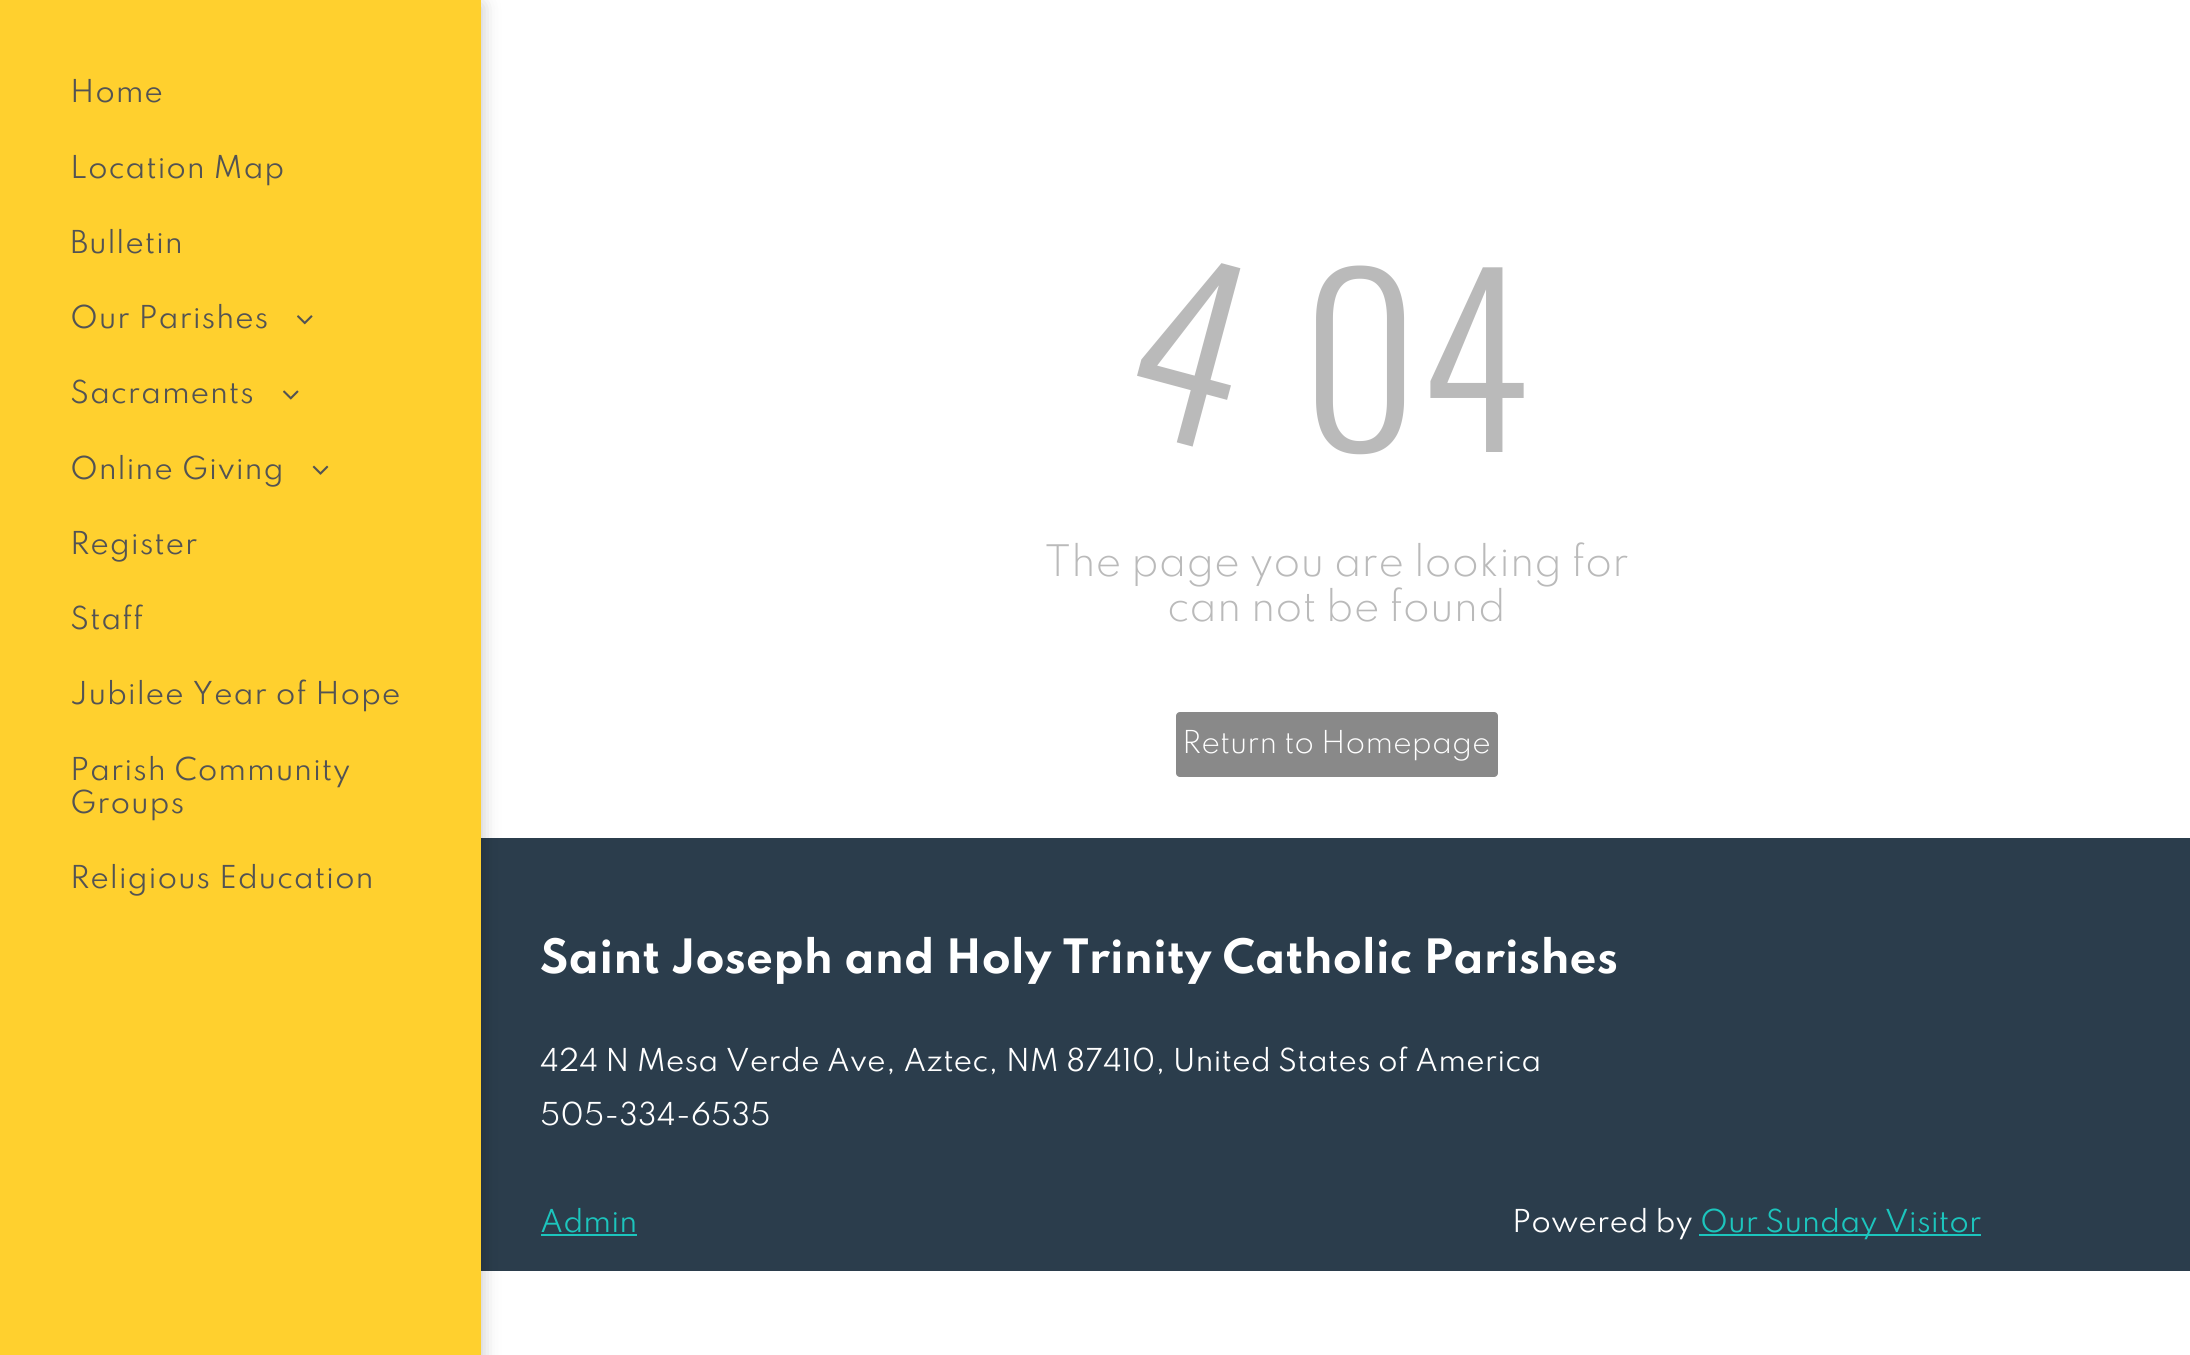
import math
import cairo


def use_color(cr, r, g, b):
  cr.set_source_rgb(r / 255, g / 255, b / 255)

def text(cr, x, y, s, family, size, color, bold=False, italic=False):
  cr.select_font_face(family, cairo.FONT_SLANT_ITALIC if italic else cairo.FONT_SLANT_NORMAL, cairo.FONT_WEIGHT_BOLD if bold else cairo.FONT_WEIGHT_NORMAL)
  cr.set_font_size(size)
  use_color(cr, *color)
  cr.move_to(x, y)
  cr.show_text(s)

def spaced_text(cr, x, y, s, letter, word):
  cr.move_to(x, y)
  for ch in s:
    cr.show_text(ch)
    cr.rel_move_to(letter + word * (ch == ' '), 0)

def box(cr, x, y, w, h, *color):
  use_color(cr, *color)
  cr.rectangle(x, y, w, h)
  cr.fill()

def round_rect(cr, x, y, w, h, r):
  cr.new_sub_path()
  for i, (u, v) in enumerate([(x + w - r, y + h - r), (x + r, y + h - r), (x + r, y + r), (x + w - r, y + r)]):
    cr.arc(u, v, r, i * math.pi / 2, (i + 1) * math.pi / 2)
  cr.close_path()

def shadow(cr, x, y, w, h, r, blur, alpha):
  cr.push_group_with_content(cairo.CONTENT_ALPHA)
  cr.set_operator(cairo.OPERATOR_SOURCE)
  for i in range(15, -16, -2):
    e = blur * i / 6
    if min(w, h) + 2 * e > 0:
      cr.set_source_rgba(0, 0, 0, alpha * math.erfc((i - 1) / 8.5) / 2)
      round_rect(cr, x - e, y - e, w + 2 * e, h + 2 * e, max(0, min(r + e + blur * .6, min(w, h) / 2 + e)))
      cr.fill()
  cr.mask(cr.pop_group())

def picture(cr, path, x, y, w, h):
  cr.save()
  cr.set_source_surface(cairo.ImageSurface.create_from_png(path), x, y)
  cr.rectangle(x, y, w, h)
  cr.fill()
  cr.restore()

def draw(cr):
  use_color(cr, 255, 255, 255)
  cr.paint()
  box(cr, 481, 838, 1709, 433, 43, 61, 76)
  use_color(cr, 0, 0, 0)
  shadow(cr, 0, 5, 481, 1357, 0, 9.5, 0.25)
  box(cr, 0, 0, 481, 1355, 255, 208, 46)
  picture(cr, "img_01.png", 297, 315, 16, 10)
  picture(cr, "img_02.png", 283, 390, 16, 10)
  picture(cr, "img_03.png", 312, 465, 17, 10)
  use_color(cr, 137, 137, 137)
  round_rect(cr, 1176, 712, 322, 65, 4)
  cr.fill()
  box(cr, 541, 1234, 96, 2, 28, 197, 189)
  box(cr, 1699, 1234, 282, 2, 28, 197, 189)
  cr.select_font_face("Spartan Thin")
  cr.set_font_size(28)
  use_color(cr, 83, 83, 83)
  spaced_text(cr, 70, 102, "Home", 0.8, 0)
  spaced_text(cr, 70, 178, "Location Map", 0.8, 0)
  spaced_text(cr, 70, 253, "Bulletin", 0.8, 0)
  spaced_text(cr, 70, 328, "Our Parishes", 0.8, 0)
  spaced_text(cr, 70, 403, "Sacraments", 0.8, 0)
  spaced_text(cr, 70, 479, "Online Giving", 0.8, 0)
  spaced_text(cr, 70, 554, "Register", 0.8, 0)
  spaced_text(cr, 70, 629, "Staff", 0.8, 0)
  spaced_text(cr, 70, 704, "Jubilee Year of Hope", 0.8, 0)
  spaced_text(cr, 70, 780, "Parish Community", 0.8, 0)
  spaced_text(cr, 70, 813, "Groups", 0.8, 0)
  spaced_text(cr, 70, 888, "Religious Education", 0.8, 0)
  cr.save()
  cr.translate(1112, 425)
  cr.rotate(15 * math.pi / 180)
  text(cr, 0, 0, "4", "Oswald Light", 228, (186, 186, 186))
  cr.restore()
  text(cr, 1301, 452, "04", "Oswald Light", 228, (186, 186, 186))
  text(cr, 1044, 576, "The page you are looking for", "Spartan Thin Light", 38.5, (186, 186, 186))
  text(cr, 1167, 621, "can not be found", "Spartan Thin Light", 38.5, (186, 186, 186))
  text(cr, 1182, 753, "Return to Homepage", "Spartan Thin Light", 28, (255, 255, 255))
  text(cr, 540, 973, "Saint Joseph and Holy Trinity Catholic Parishes", "Spartan Thin", 42, (255, 255, 255), bold=True)
  text(cr, 540, 1071, "424 N Mesa Verde Ave, Aztec, NM 87410, United States of America", "Spartan Thin", 28, (255, 255, 255))
  text(cr, 540, 1125, "505-334-6535", "Spartan Thin", 28, (255, 255, 255))
  text(cr, 540, 1232, "Admin", "Spartan Thin", 28, (28, 197, 189))
  text(cr, 1512, 1232, "Powered by", "Spartan Thin", 28, (255, 255, 255))
  text(cr, 1700, 1232, "Our Sunday Visitor", "Spartan Thin", 28, (28, 197, 189))


surface = cairo.ImageSurface(cairo.FORMAT_RGB24, 2190, 1355)
cr = cairo.Context(surface)
options = cairo.FontOptions()
options.set_hint_metrics(cairo.HINT_METRICS_OFF)
options.set_hint_style(cairo.HINT_STYLE_NONE)
cr.set_font_options(options)
cr.set_miter_limit(4)
draw(cr)
surface.write_to_png("out.png")
